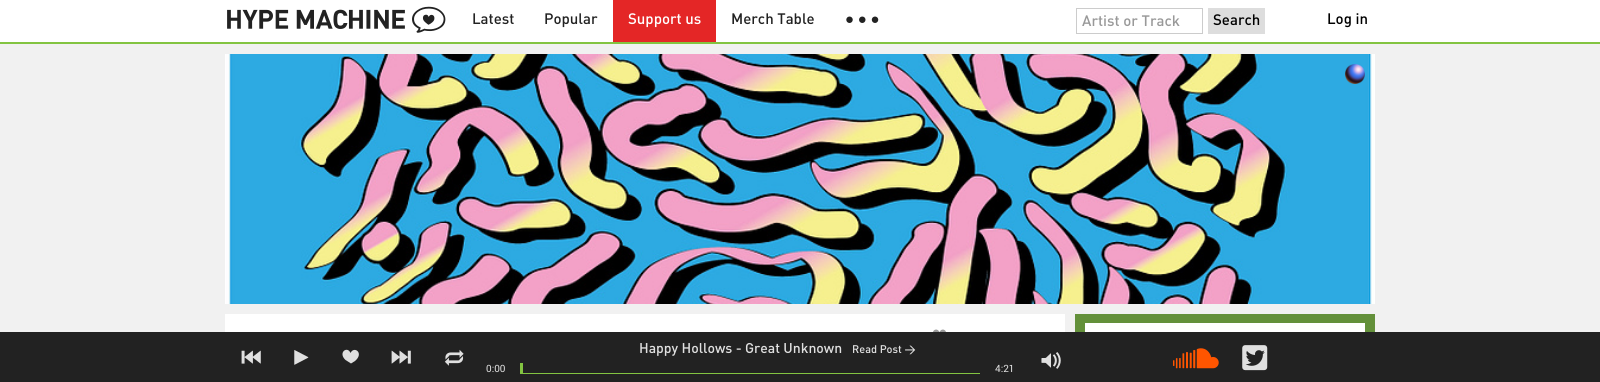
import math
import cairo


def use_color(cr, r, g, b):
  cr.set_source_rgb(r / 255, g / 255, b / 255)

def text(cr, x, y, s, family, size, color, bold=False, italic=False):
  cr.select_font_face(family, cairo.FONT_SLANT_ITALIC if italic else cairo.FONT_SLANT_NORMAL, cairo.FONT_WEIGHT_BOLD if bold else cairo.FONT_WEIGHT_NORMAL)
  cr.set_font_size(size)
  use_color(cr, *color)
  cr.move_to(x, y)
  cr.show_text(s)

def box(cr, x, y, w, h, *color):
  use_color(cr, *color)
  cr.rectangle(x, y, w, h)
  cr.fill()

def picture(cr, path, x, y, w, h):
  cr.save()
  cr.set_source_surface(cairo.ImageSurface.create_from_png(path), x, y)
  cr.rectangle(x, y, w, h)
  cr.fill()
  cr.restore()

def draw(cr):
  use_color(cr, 241, 241, 241)
  cr.paint()
  box(cr, 0, 0, 1600, 42, 255, 255, 255)
  box(cr, 0, 42, 1600, 2, 131, 196, 65)
  box(cr, 613, 0, 103, 42, 228, 38, 38)
  cr.rectangle(1076.5, 8.5, 126, 25)
  use_color(cr, 204, 204, 204)
  cr.set_line_width(1)
  cr.stroke()
  box(cr, 1208, 8, 57, 26, 221, 221, 221)
  picture(cr, "img_01.png", 225, 54, 1150, 250)
  box(cr, 225, 314, 840, 18, 255, 255, 255)
  picture(cr, "img_02.png", 933, 329, 13, 3)
  box(cr, 1075, 314, 300, 18, 99, 144, 58)
  box(cr, 1085, 323, 280, 9, 255, 255, 255)
  box(cr, 0, 332, 1600, 50, 34, 34, 34)
  picture(cr, "img_03.png", 241, 350, 20, 14)
  picture(cr, "img_04.png", 294, 350, 15, 15)
  use_color(cr, 224, 224, 224)
  cr.new_path()
  cr.move_to(350.5, 353)
  cr.curve_to(354, 345.5, 364.5, 353, 355, 361)
  cr.line_to(351, 363.5)
  cr.line_to(345.5, 360)
  cr.curve_to(337.5, 352.5, 347.5, 345.5, 350.5, 353)
  cr.close_path()
  cr.fill()
  picture(cr, "img_05.png", 391, 350, 20, 14)
  picture(cr, "img_06.png", 444, 349, 20, 17)
  picture(cr, "img_07.png", 1242, 345, 26, 26)
  box(cr, 520, 373, 460, 1, 131, 196, 65)
  box(cr, 520, 363, 3, 10, 131, 196, 65)
  picture(cr, "img_08.png", 1041, 352, 20, 17)
  text(cr, 225, 28, "1", "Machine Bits", 38, (34, 34, 34))
  text(cr, 472, 24, "Latest", "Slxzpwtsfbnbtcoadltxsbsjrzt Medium", 15, (34, 34, 34))
  text(cr, 544, 24, "Popular", "Slxzpwtsfbnbtcoadltxsbsjrzt Medium", 15, (34, 34, 34))
  text(cr, 628, 24, "Support us", "Slxzpwtsfbnbtcoadltxsbsjrzt Medium", 15, (255, 255, 255))
  text(cr, 731, 24, "Merch Table", "Slxzpwtsfbnbtcoadltxsbsjrzt Medium", 15, (34, 34, 34))
  text(cr, 845, 24, "● ● ●", "Liberation Serif", 15, (34, 34, 34), bold=True)
  text(cr, 1082, 26, "Artist or Track", "Slxzpwtsfbnbtcoadltxsbsjrzt Medium", 15, (153, 153, 153))
  text(cr, 1213, 25, "Search", "Slxzpwtsfbnbtcoadltxsbsjrzt Medium", 15, (0, 0, 0))
  text(cr, 1327, 24, "Log in", "Slxzpwtsfbnbtcoadltxsbsjrzt Medium", 15, (0, 0, 0))
  text(cr, 639, 353, "Happy Hollows - Great Unknown", "Slxzpwtsfbnbtcoadltxsbsjrzt Medium", 14, (224, 224, 224))
  text(cr, 852, 353, "Read Post →", "Slxzpwtsfbnbtcoadltxsbsjrzt Medium", 11, (224, 224, 224))
  text(cr, 1172, 366, "9", "Machine Bits", 20, (255, 85, 0))
  text(cr, 486, 372, "0:00", "Roboto", 10, (224, 224, 224))
  text(cr, 995, 372, "4:21", "Roboto", 10, (224, 224, 224))


surface = cairo.ImageSurface(cairo.FORMAT_RGB24, 1600, 382)
cr = cairo.Context(surface)
options = cairo.FontOptions()
options.set_hint_metrics(cairo.HINT_METRICS_OFF)
options.set_hint_style(cairo.HINT_STYLE_NONE)
cr.set_font_options(options)
cr.set_miter_limit(4)
draw(cr)
surface.write_to_png("out.png")
